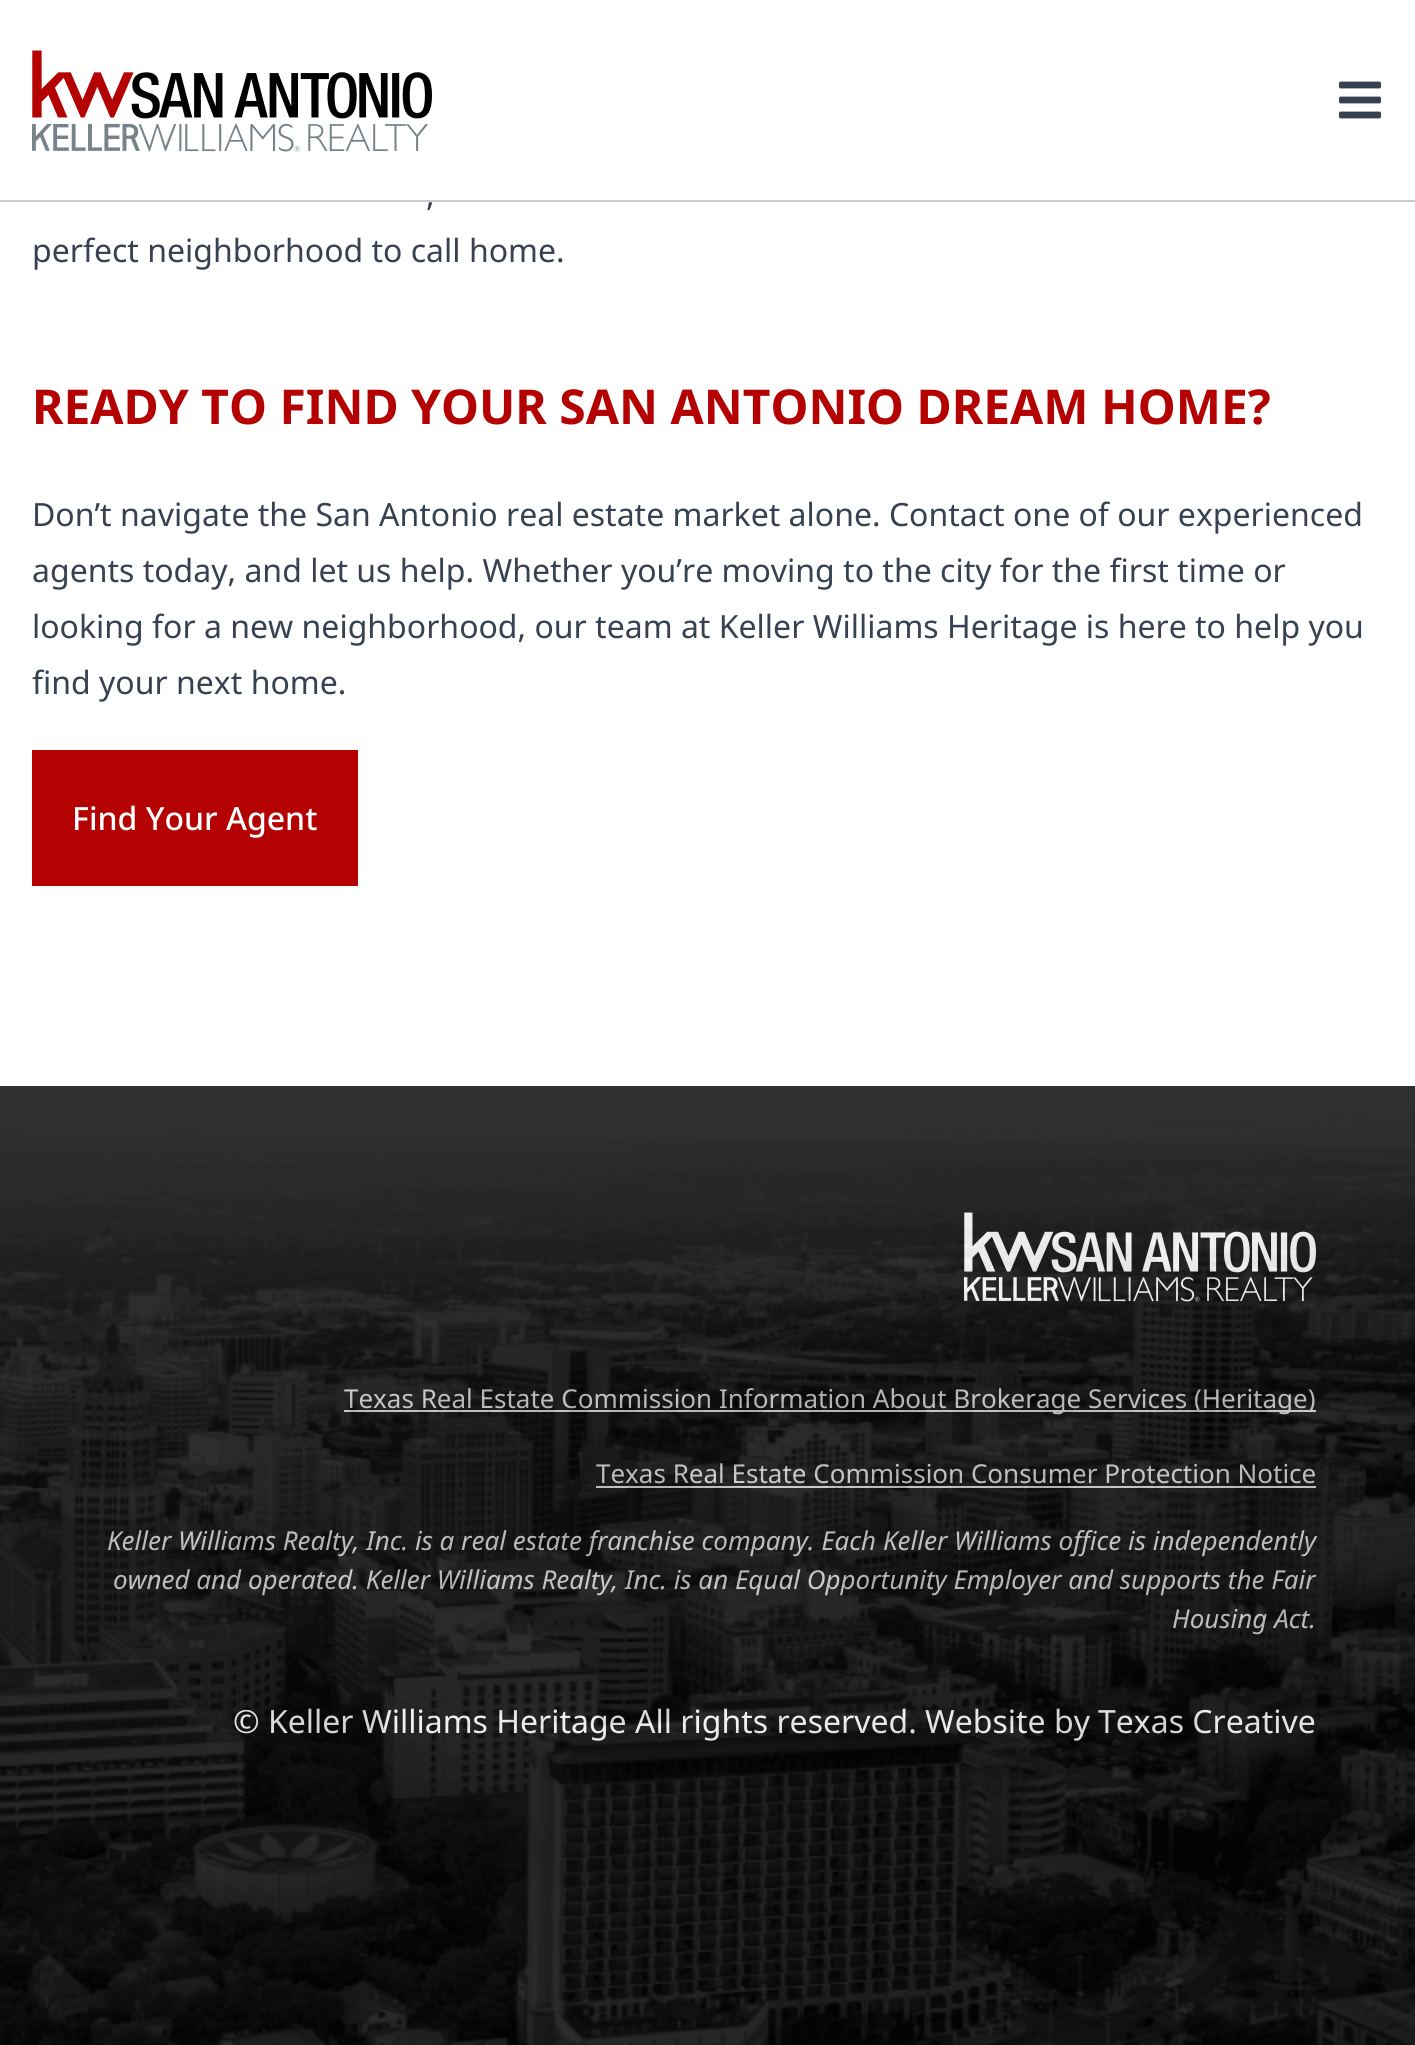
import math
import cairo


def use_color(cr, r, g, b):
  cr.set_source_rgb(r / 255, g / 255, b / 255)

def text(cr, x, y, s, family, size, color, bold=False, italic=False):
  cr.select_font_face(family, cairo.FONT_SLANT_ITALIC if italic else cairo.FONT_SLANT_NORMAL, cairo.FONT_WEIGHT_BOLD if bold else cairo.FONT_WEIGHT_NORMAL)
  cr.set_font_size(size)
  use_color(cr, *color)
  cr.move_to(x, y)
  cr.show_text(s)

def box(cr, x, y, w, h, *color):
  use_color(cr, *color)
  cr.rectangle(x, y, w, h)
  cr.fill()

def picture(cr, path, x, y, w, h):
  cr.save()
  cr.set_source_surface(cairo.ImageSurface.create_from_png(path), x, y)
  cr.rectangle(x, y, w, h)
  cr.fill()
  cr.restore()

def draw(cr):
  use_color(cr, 255, 255, 255)
  cr.paint()
  box(cr, 0, 200, 1415, 2, 204, 204, 204)
  picture(cr, "img_01.png", 32, 50, 400, 102)
  picture(cr, "img_02.png", 1339, 81, 42, 38)
  box(cr, 32, 750, 326, 136, 180, 1, 1)
  box(cr, 0, 1086, 1415, 959, 0, 0, 0)
  picture(cr, "img_04.png", 964, 1212, 352, 90)
  box(cr, 344, 1410, 972, 2, 204, 204, 204)
  box(cr, 596, 1486, 720, 2, 204, 204, 204)
  text(cr, 426, 206, ",", "Noto Sans", 32, (55, 65, 81))
  text(cr, 32, 262, "perfect neighborhood to call home.", "Noto Sans", 32, (55, 65, 81))
  text(cr, 32, 424, "READY TO FIND YOUR SAN ANTONIO DREAM HOME?", "Noto Sans", 48, (180, 1, 1), bold=True)
  text(cr, 32, 526, "Don’t navigate the San Antonio real estate market alone. Contact one of our experienced", "Noto Sans", 32, (55, 65, 81))
  text(cr, 32, 582, "agents today, and let us help. Whether you’re moving to the city for the first time or", "Noto Sans", 32, (55, 65, 81))
  text(cr, 32, 638, "looking for a new neighborhood, our team at Keller Williams Heritage is here to help you", "Noto Sans", 32, (55, 65, 81))
  text(cr, 32, 694, "find your next home.", "Noto Sans", 32, (55, 65, 81))
  text(cr, 72, 830, "Find Your Agent", "Noto Sans Medium", 32, (255, 255, 255))
  text(cr, 344, 1408, "Texas Real Estate Commission Information About Brokerage Services (Heritage)", "Noto Sans", 26, (204, 204, 204))
  text(cr, 596, 1483, "Texas Real Estate Commission Consumer Protection Notice", "Noto Sans", 26, (204, 204, 204))
  text(cr, 107, 1550, "Keller Williams Realty, Inc. is a real estate franchise company. Each Keller Williams office is independently", "Noto Sans", 26, (204, 204, 204), italic=True)
  text(cr, 113, 1589, "owned and operated. Keller Williams Realty, Inc. is an Equal Opportunity Employer and supports the Fair", "Noto Sans", 26, (204, 204, 204), italic=True)
  text(cr, 1172, 1628, "Housing Act.", "Noto Sans", 26, (204, 204, 204), italic=True)
  text(cr, 233, 1733, "© Keller Williams Heritage All rights reserved.", "Noto Sans", 32, (255, 255, 255))
  text(cr, 925, 1733, "Website by", "Noto Sans", 32, (255, 255, 255))
  text(cr, 1098, 1733, "Texas Creative", "Noto Sans", 32, (255, 255, 255))
  picture(cr, "img_03.png", 0, 1086, 1415, 959)


surface = cairo.ImageSurface(cairo.FORMAT_RGB24, 1415, 2045)
cr = cairo.Context(surface)
options = cairo.FontOptions()
options.set_hint_metrics(cairo.HINT_METRICS_OFF)
options.set_hint_style(cairo.HINT_STYLE_NONE)
cr.set_font_options(options)
cr.set_miter_limit(4)
draw(cr)
surface.write_to_png("out.png")
